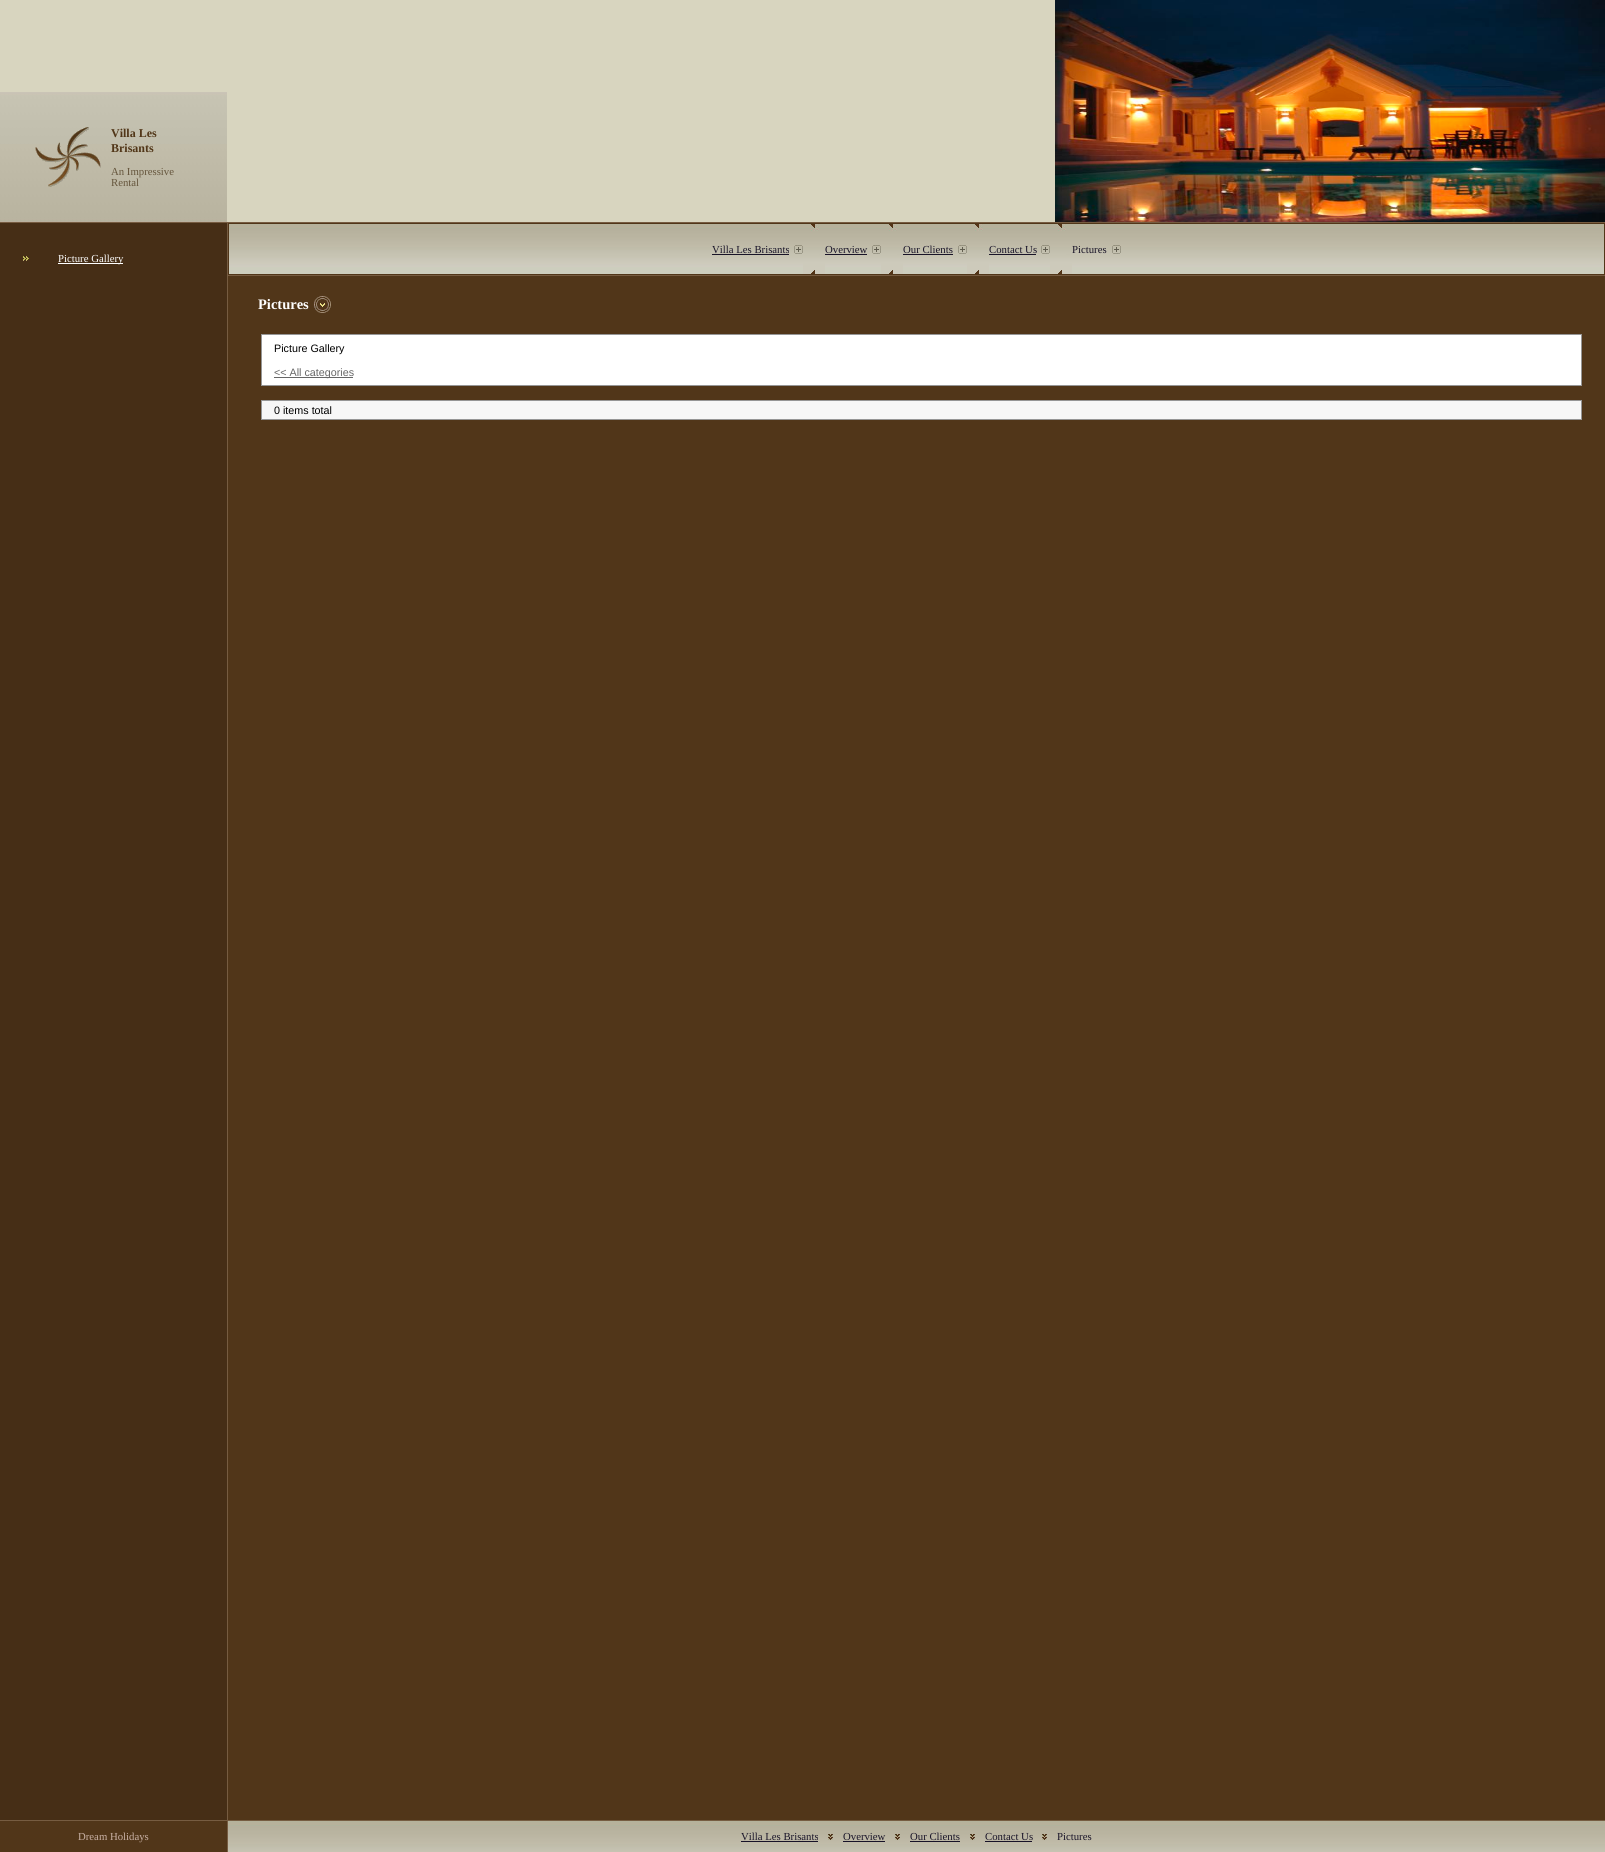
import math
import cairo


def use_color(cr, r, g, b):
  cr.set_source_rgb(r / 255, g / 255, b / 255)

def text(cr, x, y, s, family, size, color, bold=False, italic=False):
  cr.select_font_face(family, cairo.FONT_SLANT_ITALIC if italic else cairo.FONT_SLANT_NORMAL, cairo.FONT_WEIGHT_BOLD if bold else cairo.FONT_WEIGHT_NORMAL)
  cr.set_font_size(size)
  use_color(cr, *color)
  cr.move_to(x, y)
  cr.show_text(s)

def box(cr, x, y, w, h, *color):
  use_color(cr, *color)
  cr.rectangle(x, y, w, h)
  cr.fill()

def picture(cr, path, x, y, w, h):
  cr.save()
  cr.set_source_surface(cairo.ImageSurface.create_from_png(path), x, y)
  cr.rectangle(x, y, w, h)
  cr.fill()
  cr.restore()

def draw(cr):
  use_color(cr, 81, 54, 25)
  cr.paint()
  box(cr, 0, 0, 227, 92, 216, 213, 191)
  picture(cr, "img_01.png", 0, 92, 227, 130)
  picture(cr, "img_02.png", 35, 127, 66, 60)
  box(cr, 227, 0, 828, 222, 216, 213, 191)
  picture(cr, "img_03.png", 1055, 0, 550, 222)
  box(cr, 0, 222, 1605, 1, 118, 92, 65)
  box(cr, 0, 223, 227, 1597, 70, 46, 22)
  picture(cr, "img_04.png", 23, 256, 6, 5)
  box(cr, 58, 263, 65, 1, 255, 255, 255)
  box(cr, 227, 223, 1, 1597, 118, 92, 65)
  picture(cr, "img_05.png", 229, 224, 1375, 50)
  box(cr, 712, 254, 77, 1, 25, 20, 40)
  picture(cr, "img_06.png", 794, 245, 9, 9)
  picture(cr, "img_07.png", 803, 224, 22, 50)
  box(cr, 825, 254, 42, 1, 25, 20, 40)
  picture(cr, "img_06.png", 872, 245, 9, 9)
  picture(cr, "img_07.png", 881, 224, 22, 50)
  box(cr, 903, 254, 50, 1, 25, 20, 40)
  picture(cr, "img_06.png", 958, 245, 9, 9)
  picture(cr, "img_07.png", 967, 224, 22, 50)
  box(cr, 989, 254, 47, 1, 25, 20, 40)
  picture(cr, "img_06.png", 1041, 245, 9, 9)
  picture(cr, "img_07.png", 1050, 224, 22, 50)
  picture(cr, "img_06.png", 1112, 245, 9, 9)
  box(cr, 228, 275, 1377, 1, 118, 92, 65)
  picture(cr, "img_08.png", 314, 296, 17, 17)
  use_color(cr, 255, 255, 255)
  cr.rectangle(261.5, 334.5, 1320, 51)
  cr.fill_preserve()
  use_color(cr, 150, 150, 150)
  cr.set_line_width(1)
  cr.stroke()
  box(cr, 274, 377, 79, 1, 102, 102, 102)
  use_color(cr, 247, 247, 247)
  cr.rectangle(261.5, 400.5, 1320, 19)
  cr.fill_preserve()
  use_color(cr, 150, 150, 150)
  cr.stroke()
  box(cr, 0, 1820, 1605, 1, 118, 92, 65)
  box(cr, 227, 1821, 1, 31, 118, 92, 65)
  picture(cr, "img_09.png", 228, 1821, 1377, 31)
  box(cr, 741, 1841, 77, 1, 23, 18, 40)
  picture(cr, "img_10.png", 828, 1834, 5, 6)
  box(cr, 843, 1841, 42, 1, 23, 18, 40)
  picture(cr, "img_10.png", 895, 1834, 5, 6)
  box(cr, 910, 1841, 50, 1, 23, 18, 40)
  picture(cr, "img_10.png", 970, 1834, 5, 6)
  box(cr, 985, 1841, 47, 1, 23, 18, 40)
  picture(cr, "img_10.png", 1042, 1834, 5, 6)
  text(cr, 111, 137, "Villa Les", "Liberation Serif", 12, (81, 54, 24), bold=True)
  text(cr, 111, 152, "Brisants", "Liberation Serif", 12, (81, 54, 24), bold=True)
  text(cr, 111, 175, "An Impressive", "Liberation Serif", 10.75, (101, 85, 60))
  text(cr, 111, 186, "Rental", "Liberation Serif", 10.75, (101, 85, 60))
  text(cr, 58, 262, "Picture Gallery", "Liberation Serif", 10.75, (255, 255, 255))
  text(cr, 712, 253, "Villa Les Brisants", "Liberation Serif", 10.75, (25, 20, 40))
  text(cr, 825, 253, "Overview", "Liberation Serif", 10.75, (25, 20, 40))
  text(cr, 903, 253, "Our Clients", "Liberation Serif", 10.75, (25, 20, 40))
  text(cr, 989, 253, "Contact Us", "Liberation Serif", 10.75, (25, 20, 40))
  text(cr, 1072, 253, "Pictures", "Liberation Serif", 10.75, (25, 20, 40))
  text(cr, 258, 309, "Pictures", "Liberation Serif", 14.5, (255, 255, 255), bold=True)
  text(cr, 274, 352, "Picture Gallery", "Liberation Sans", 10.75, (0, 0, 0))
  text(cr, 274, 376, "<< All categories", "Liberation Sans", 10.75, (102, 102, 102))
  text(cr, 274, 414, "0 items total", "Liberation Sans", 10.75, (0, 0, 0))
  text(cr, 78, 1840, "Dream Holidays", "Liberation Serif", 10.75, (201, 177, 165))
  text(cr, 741, 1840, "Villa Les Brisants", "Liberation Serif", 10.75, (25, 20, 40))
  text(cr, 843, 1840, "Overview", "Liberation Serif", 10.75, (25, 20, 40))
  text(cr, 910, 1840, "Our Clients", "Liberation Serif", 10.75, (25, 20, 40))
  text(cr, 985, 1840, "Contact Us", "Liberation Serif", 10.75, (25, 20, 40))
  text(cr, 1057, 1840, "Pictures", "Liberation Serif", 10.75, (25, 20, 40))


surface = cairo.ImageSurface(cairo.FORMAT_RGB24, 1605, 1852)
cr = cairo.Context(surface)
options = cairo.FontOptions()
options.set_hint_metrics(cairo.HINT_METRICS_OFF)
options.set_hint_style(cairo.HINT_STYLE_NONE)
cr.set_font_options(options)
cr.set_miter_limit(4)
draw(cr)
surface.write_to_png("out.png")
